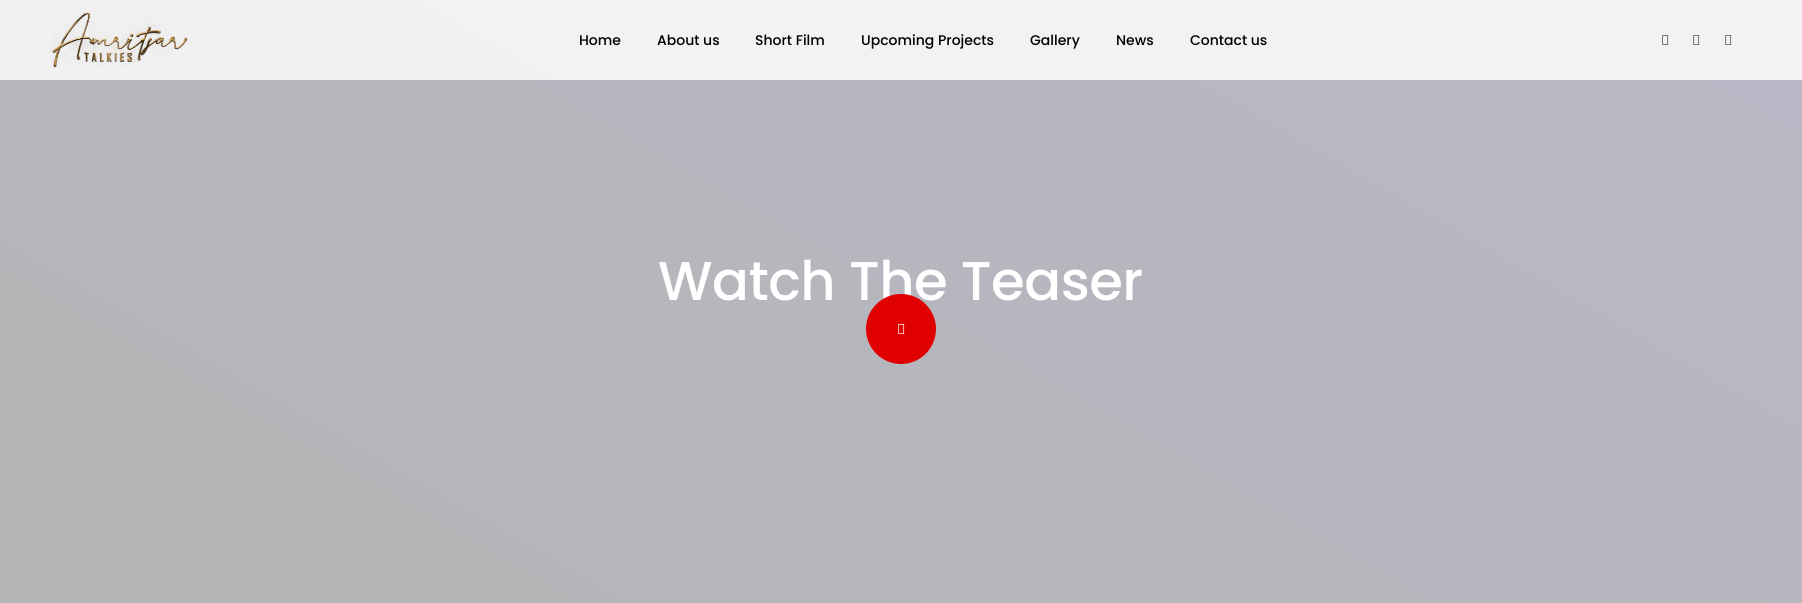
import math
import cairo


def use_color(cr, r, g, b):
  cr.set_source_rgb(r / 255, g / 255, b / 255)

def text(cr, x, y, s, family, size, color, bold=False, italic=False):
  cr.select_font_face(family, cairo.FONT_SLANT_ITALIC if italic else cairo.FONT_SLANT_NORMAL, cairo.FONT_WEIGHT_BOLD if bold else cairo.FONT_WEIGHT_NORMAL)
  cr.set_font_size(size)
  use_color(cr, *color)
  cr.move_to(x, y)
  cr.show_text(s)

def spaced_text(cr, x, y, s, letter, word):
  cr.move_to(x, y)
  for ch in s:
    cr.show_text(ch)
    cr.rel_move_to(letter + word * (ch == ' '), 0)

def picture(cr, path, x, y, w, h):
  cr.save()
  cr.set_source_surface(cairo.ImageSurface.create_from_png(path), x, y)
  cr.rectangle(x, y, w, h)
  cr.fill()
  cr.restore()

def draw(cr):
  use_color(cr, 255, 255, 255)
  cr.paint()
  gradient = cairo.LinearGradient(545, 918, 1257, -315)
  gradient.add_color_stop_rgba(0, 0.945, 0.945, 0.945, 1)
  gradient.add_color_stop_rgba(1, 0.949, 0.945, 0.957, 1)
  cr.set_source(gradient)
  cr.rectangle(0, 0, 1802, 80)
  cr.fill()
  picture(cr, "img_01.png", 50, 11, 138, 57)
  picture(cr, "img_02.png", 1662, 35, 7, 10)
  picture(cr, "img_02.png", 1693, 35, 7, 10)
  picture(cr, "img_02.png", 1725, 35, 7, 10)
  gradient = cairo.LinearGradient(545, 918, 1257, -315)
  gradient.add_color_stop_rgba(0, 0.706, 0.71, 0.71, 1)
  gradient.add_color_stop_rgba(1, 0.725, 0.718, 0.776, 1)
  cr.set_source(gradient)
  cr.rectangle(0, 80, 1802, 523)
  cr.fill()
  text(cr, 579, 45, "Home", "Poppins Medium", 14, (0, 0, 0))
  text(cr, 657, 45, "About us", "Poppins Medium", 14, (0, 0, 0))
  text(cr, 755, 45, "Short Film", "Poppins Medium", 14, (0, 0, 0))
  text(cr, 861, 45, "Upcoming Projects", "Poppins Medium", 14, (0, 0, 0))
  text(cr, 1030, 45, "Gallery", "Poppins Medium", 14, (0, 0, 0))
  text(cr, 1116, 45, "News", "Poppins Medium", 14, (0, 0, 0))
  text(cr, 1190, 45, "Contact us", "Poppins Medium", 14, (0, 0, 0))
  cr.set_font_size(54.5)
  use_color(cr, 255, 255, 255)
  spaced_text(cr, 658, 300, "Watch The Teaser", -0.5, 0)
  use_color(cr, 224, 0, 0)
  cr.new_path()
  cr.arc(901, 329, 35, 0, 2 * math.pi)
  cr.fill()
  picture(cr, "img_03.png", 898, 324, 7, 10)


surface = cairo.ImageSurface(cairo.FORMAT_RGB24, 1802, 603)
cr = cairo.Context(surface)
options = cairo.FontOptions()
options.set_hint_metrics(cairo.HINT_METRICS_OFF)
options.set_hint_style(cairo.HINT_STYLE_NONE)
cr.set_font_options(options)
cr.set_miter_limit(4)
draw(cr)
surface.write_to_png("out.png")
